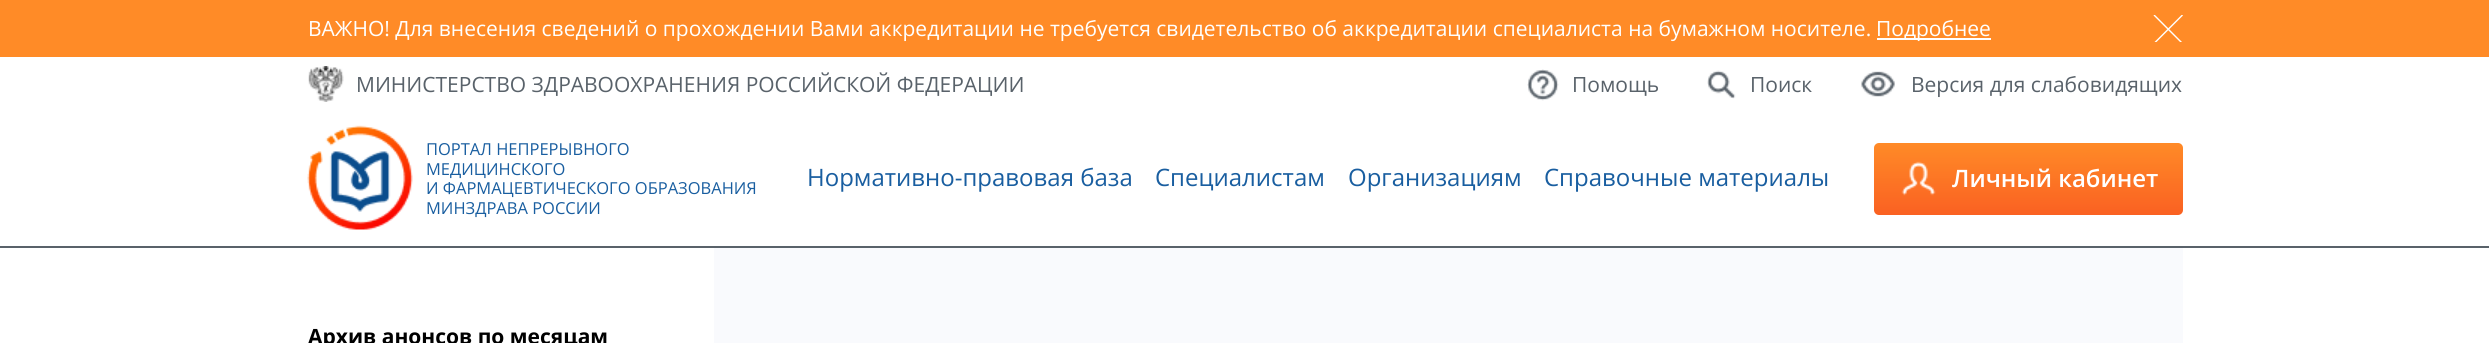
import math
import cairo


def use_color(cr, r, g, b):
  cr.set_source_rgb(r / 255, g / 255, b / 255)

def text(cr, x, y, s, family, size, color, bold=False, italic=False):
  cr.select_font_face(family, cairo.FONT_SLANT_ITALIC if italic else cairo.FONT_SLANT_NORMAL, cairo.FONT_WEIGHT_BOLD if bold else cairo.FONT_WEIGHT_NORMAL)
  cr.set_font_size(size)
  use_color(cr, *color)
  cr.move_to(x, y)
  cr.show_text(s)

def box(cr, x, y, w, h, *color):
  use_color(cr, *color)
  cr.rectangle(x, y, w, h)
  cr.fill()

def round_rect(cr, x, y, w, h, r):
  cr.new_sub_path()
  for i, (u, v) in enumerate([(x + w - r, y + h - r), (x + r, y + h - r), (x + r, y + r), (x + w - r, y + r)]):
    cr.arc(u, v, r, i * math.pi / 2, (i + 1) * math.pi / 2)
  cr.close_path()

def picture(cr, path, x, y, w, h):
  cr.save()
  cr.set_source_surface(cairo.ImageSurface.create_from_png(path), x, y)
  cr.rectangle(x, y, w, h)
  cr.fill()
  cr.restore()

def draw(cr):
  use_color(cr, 255, 255, 255)
  cr.paint()
  box(cr, 0, 0, 2489, 57, 255, 139, 39)
  box(cr, 1877, 38, 114, 2, 255, 255, 255)
  cr.save()
  cr.rectangle(308, 15, 1875, 27)
  cr.clip()
  cr.new_path()
  cr.move_to(2153.5, 43)
  cr.line_to(2182, 14.5)
  cr.line_to(2183, 15.5)
  cr.line_to(2154.5, 44)
  cr.close_path()
  cr.fill()
  cr.new_path()
  cr.move_to(2154.5, 14.5)
  cr.line_to(2183, 43)
  cr.line_to(2182, 44)
  cr.line_to(2153.5, 15.5)
  cr.close_path()
  cr.fill()
  cr.restore()
  picture(cr, "img_01.png", 308, 66, 36, 36)
  picture(cr, "img_02.png", 1527, 69, 32, 32)
  picture(cr, "img_03.png", 1707, 70, 29, 29)
  picture(cr, "img_04.png", 1861, 71, 34, 26)
  box(cr, 0, 246, 2489, 2, 89, 98, 106)
  picture(cr, "img_05.png", 307, 125, 106, 105)
  gradient = cairo.LinearGradient(2028, 142, 2028, 215)
  gradient.add_color_stop_rgba(0, 1, 0.545, 0.153, 1)
  gradient.add_color_stop_rgba(1, 0.98, 0.38, 0.133, 1)
  cr.set_source(gradient)
  round_rect(cr, 1874, 143, 309, 72, 5)
  cr.fill()
  picture(cr, "img_06.png", 1901, 161, 35, 35)
  box(cr, 714, 248, 1469, 95, 249, 250, 253)
  text(cr, 308, 36, "ВАЖНО! Для внесения сведений о прохождении Вами аккредитации не требуется свидетельство об аккредитации специалиста на бумажном носителе.", "Open Sans", 21, (255, 255, 255))
  text(cr, 1876, 36, "Подробнее", "Open Sans", 21, (255, 255, 255))
  text(cr, 356, 92, "МИНИСТЕРСТВО ЗДРАВООХРАНЕНИЯ РОССИЙСКОЙ ФЕДЕРАЦИИ", "Open Sans", 21, (89, 98, 106))
  text(cr, 1572, 92, "Помощь", "Open Sans", 21, (89, 98, 106))
  text(cr, 1750, 92, "Поиск", "Open Sans", 21, (89, 98, 106))
  text(cr, 1911, 92, "Версия для слабовидящих", "Open Sans", 21, (89, 98, 106))
  text(cr, 426, 155, "ПОРТАЛ НЕПРЕРЫВНОГО", "Open Sans", 16.5, (25, 94, 160))
  text(cr, 426, 175, "МЕДИЦИНСКОГО", "Open Sans", 16.5, (25, 94, 160))
  text(cr, 426, 194, "И ФАРМАЦЕВТИЧЕСКОГО ОБРАЗОВАНИЯ", "Open Sans", 16.5, (25, 94, 160))
  text(cr, 426, 214, "МИНЗДРАВА РОССИИ", "Open Sans", 16.5, (25, 94, 160))
  text(cr, 807, 186, "Нормативно-правовая база", "Open Sans", 24, (25, 94, 160))
  text(cr, 1155, 186, "Специалистам", "Open Sans", 24, (25, 94, 160))
  text(cr, 1348, 186, "Организациям", "Open Sans", 24, (25, 94, 160))
  text(cr, 1544, 186, "Справочные материалы", "Open Sans", 24, (25, 94, 160))
  text(cr, 1952, 187, "Личный кабинет", "Open Sans SemiBold", 24, (255, 255, 255))
  text(cr, 308, 344, "Архив анонсов по месяцам", "Open Sans", 21, (0, 0, 0), bold=True)


surface = cairo.ImageSurface(cairo.FORMAT_RGB24, 2489, 343)
cr = cairo.Context(surface)
options = cairo.FontOptions()
options.set_hint_metrics(cairo.HINT_METRICS_OFF)
options.set_hint_style(cairo.HINT_STYLE_NONE)
cr.set_font_options(options)
cr.set_miter_limit(4)
draw(cr)
surface.write_to_png("out.png")
